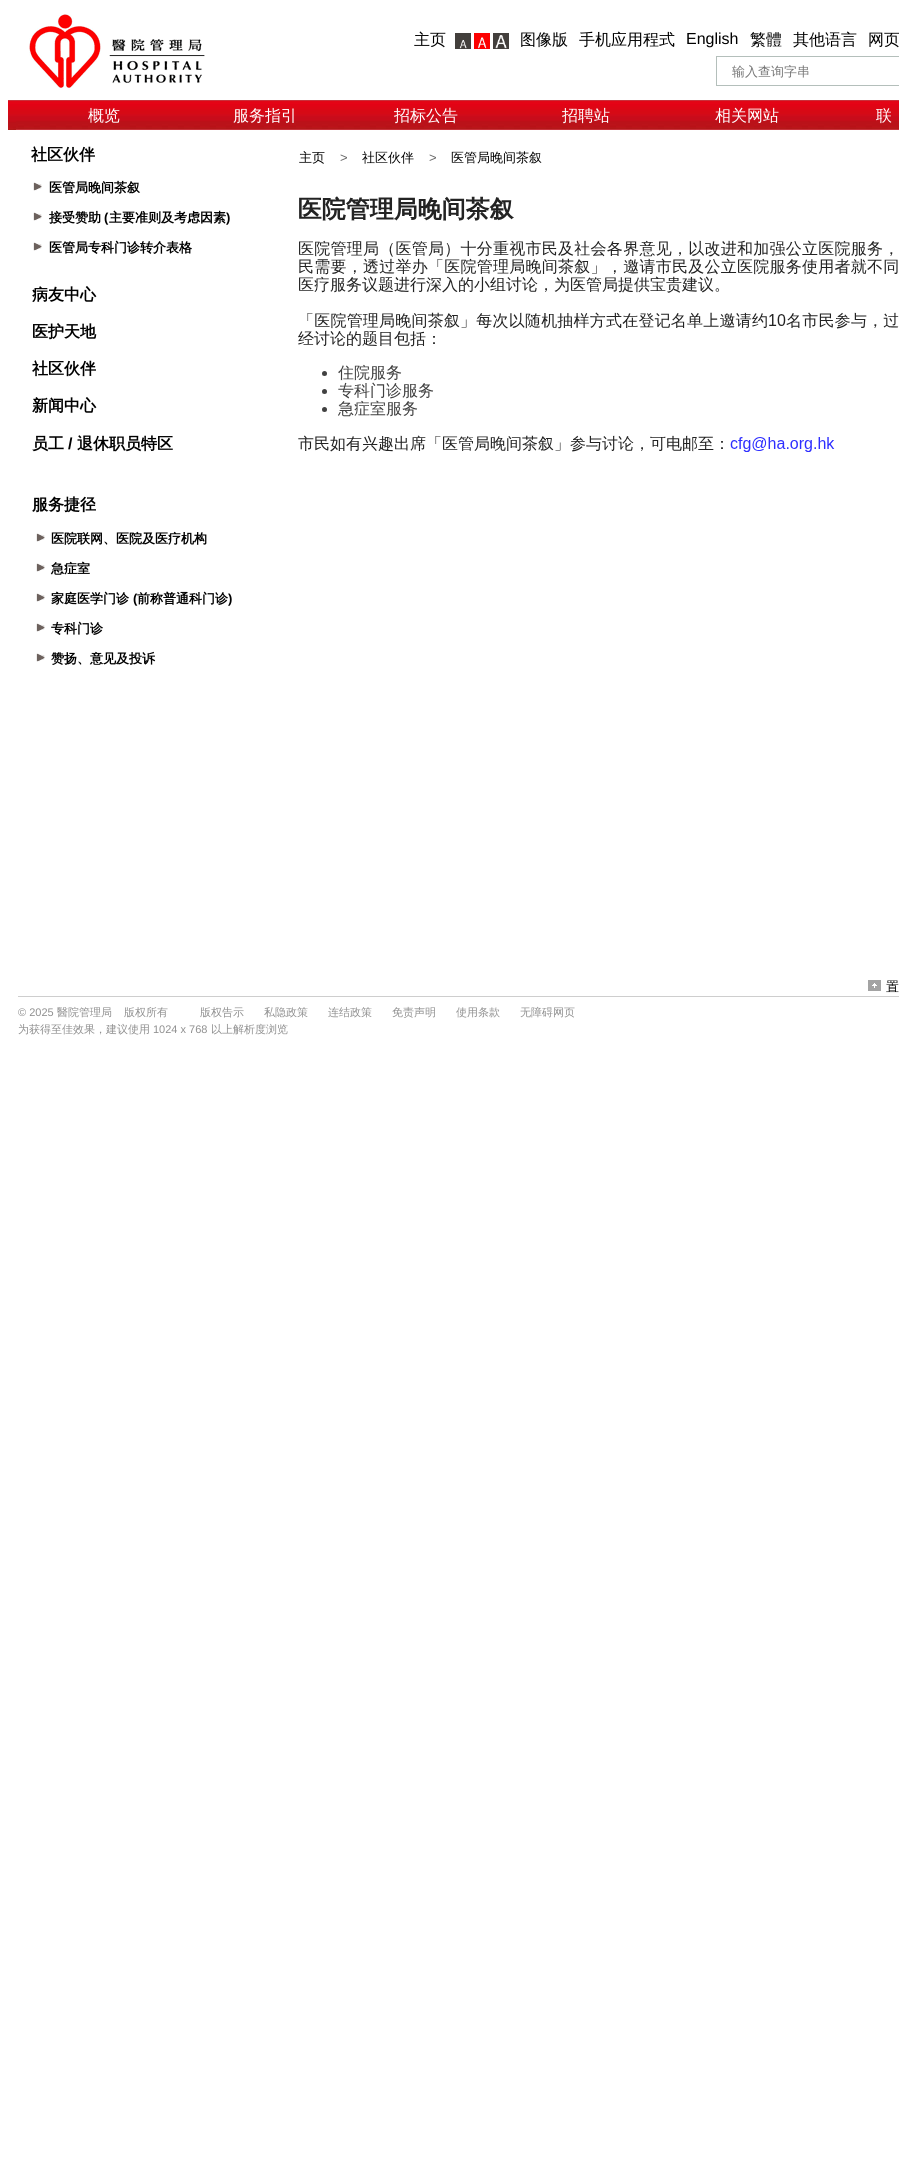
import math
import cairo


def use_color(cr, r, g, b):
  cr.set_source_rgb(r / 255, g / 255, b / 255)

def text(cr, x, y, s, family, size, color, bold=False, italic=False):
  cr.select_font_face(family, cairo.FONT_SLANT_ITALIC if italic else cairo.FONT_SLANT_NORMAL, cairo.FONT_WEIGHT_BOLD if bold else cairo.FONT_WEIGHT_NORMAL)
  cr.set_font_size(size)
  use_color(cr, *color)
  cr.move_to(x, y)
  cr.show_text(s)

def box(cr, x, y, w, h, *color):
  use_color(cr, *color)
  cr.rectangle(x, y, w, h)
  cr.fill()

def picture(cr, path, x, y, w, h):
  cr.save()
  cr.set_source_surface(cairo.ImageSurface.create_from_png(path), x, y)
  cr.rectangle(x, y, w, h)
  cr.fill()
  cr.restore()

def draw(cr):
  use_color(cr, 255, 255, 255)
  cr.paint()
  picture(cr, "img_01.png", 29, 14, 176, 76)
  picture(cr, "img_02.png", 455, 33, 16, 16)
  picture(cr, "img_03.png", 474, 33, 16, 16)
  picture(cr, "img_04.png", 493, 33, 16, 16)
  box(cr, 716, 56, 183, 1, 180, 191, 187)
  box(cr, 716, 85, 183, 1, 180, 191, 187)
  box(cr, 716, 56, 1, 30, 180, 191, 187)
  picture(cr, "img_05.png", 8, 100, 891, 30)
  picture(cr, "img_06.png", 8, 121, 8, 9)
  picture(cr, "img_07.png", 33, 182, 9, 9)
  picture(cr, "img_07.png", 33, 212, 9, 9)
  picture(cr, "img_07.png", 33, 242, 9, 9)
  picture(cr, "img_07.png", 36, 533, 9, 9)
  picture(cr, "img_07.png", 36, 563, 9, 9)
  picture(cr, "img_07.png", 36, 593, 9, 9)
  picture(cr, "img_07.png", 36, 623, 9, 9)
  picture(cr, "img_07.png", 36, 653, 9, 9)
  picture(cr, "img_08.png", 298, 196, 601, 256)
  picture(cr, "img_09.png", 868, 980, 13, 11)
  box(cr, 18, 996, 881, 1, 206, 206, 206)
  text(cr, 414, 45, "主页", "WenQuanYi Zen Hei Medium", 16, (0, 0, 0))
  text(cr, 520, 45, "图像版", "WenQuanYi Zen Hei Medium", 16, (0, 0, 0))
  text(cr, 579, 45, "手机应用程式", "WenQuanYi Zen Hei Medium", 16, (0, 0, 0))
  text(cr, 686, 44, "English", "Liberation Sans", 16, (0, 0, 0))
  text(cr, 750, 45, "繁體", "WenQuanYi Zen Hei Medium", 16, (0, 0, 0))
  text(cr, 793, 45, "其他语言", "WenQuanYi Zen Hei Medium", 16, (0, 0, 0))
  text(cr, 868, 45, "网页", "WenQuanYi Zen Hei Medium", 16, (0, 0, 0))
  text(cr, 732, 76, "输入查询字串", "WenQuanYi Zen Hei Medium", 13, (117, 117, 117))
  text(cr, 88, 121, "概览", "WenQuanYi Zen Hei Medium", 16, (255, 255, 255))
  text(cr, 233, 121, "服务指引", "WenQuanYi Zen Hei Medium", 16, (255, 255, 255))
  text(cr, 394, 121, "招标公告", "WenQuanYi Zen Hei Medium", 16, (255, 255, 255))
  text(cr, 562, 121, "招聘站", "WenQuanYi Zen Hei Medium", 16, (255, 255, 255))
  text(cr, 715, 121, "相关网站", "WenQuanYi Zen Hei Medium", 16, (255, 255, 255))
  text(cr, 876, 121, "联", "WenQuanYi Zen Hei Medium", 16, (255, 255, 255))
  text(cr, 31, 160, "社区伙伴", "WenQuanYi Zen Hei", 16, (0, 0, 0), bold=True)
  text(cr, 49, 192, "医管局晚间茶叙", "WenQuanYi Zen Hei", 13, (0, 0, 0), bold=True)
  text(cr, 49, 222, "接受赞助", "WenQuanYi Zen Hei", 13, (0, 0, 0), bold=True)
  text(cr, 104, 222, "(", "Liberation Sans", 13, (0, 0, 0), bold=True)
  text(cr, 109, 222, "主要准则及考虑因素", "WenQuanYi Zen Hei", 13, (0, 0, 0), bold=True)
  text(cr, 226, 222, ")", "Liberation Sans", 13, (0, 0, 0), bold=True)
  text(cr, 49, 252, "医管局专科门诊转介表格", "WenQuanYi Zen Hei", 13, (0, 0, 0), bold=True)
  text(cr, 32, 300, "病友中心", "WenQuanYi Zen Hei", 16, (0, 0, 0), bold=True)
  text(cr, 32, 337, "医护天地", "WenQuanYi Zen Hei", 16, (0, 0, 0), bold=True)
  text(cr, 32, 374, "社区伙伴", "WenQuanYi Zen Hei", 16, (0, 0, 0), bold=True)
  text(cr, 32, 411, "新闻中心", "WenQuanYi Zen Hei", 16, (0, 0, 0), bold=True)
  text(cr, 32, 449, "员工", "WenQuanYi Zen Hei", 16, (0, 0, 0), bold=True)
  text(cr, 68, 449, "/", "Liberation Sans", 16, (0, 0, 0), bold=True)
  text(cr, 77, 449, "退休职员特区", "WenQuanYi Zen Hei", 16, (0, 0, 0), bold=True)
  text(cr, 32, 510, "服务捷径", "WenQuanYi Zen Hei", 16, (0, 0, 0), bold=True)
  text(cr, 51, 543, "医院联网、医院及医疗机构", "WenQuanYi Zen Hei", 13, (0, 0, 0), bold=True)
  text(cr, 51, 573, "急症室", "WenQuanYi Zen Hei", 13, (0, 0, 0), bold=True)
  text(cr, 51, 603, "家庭医学门诊", "WenQuanYi Zen Hei", 13, (0, 0, 0), bold=True)
  text(cr, 133, 603, "(", "Liberation Sans", 13, (0, 0, 0), bold=True)
  text(cr, 137, 603, "前称普通科门诊", "WenQuanYi Zen Hei", 13, (0, 0, 0), bold=True)
  text(cr, 228, 603, ")", "Liberation Sans", 13, (0, 0, 0), bold=True)
  text(cr, 51, 633, "专科门诊", "WenQuanYi Zen Hei", 13, (0, 0, 0), bold=True)
  text(cr, 51, 663, "赞扬、意见及投诉", "WenQuanYi Zen Hei", 13, (0, 0, 0), bold=True)
  text(cr, 299, 162, "主页", "WenQuanYi Zen Hei Medium", 13, (0, 0, 0))
  text(cr, 340, 162, ">", "Liberation Sans", 13, (102, 102, 102))
  text(cr, 362, 162, "社区伙伴", "WenQuanYi Zen Hei Medium", 13, (0, 0, 0))
  text(cr, 429, 162, ">", "Liberation Sans", 13, (102, 102, 102))
  text(cr, 451, 162, "医管局晚间茶叙", "WenQuanYi Zen Hei Medium", 13, (0, 0, 0))
  text(cr, 886, 991, "置", "WenQuanYi Zen Hei Medium", 13, (0, 0, 0))
  text(cr, 18, 1016, "© 2025", "Liberation Sans", 11, (143, 143, 143))
  text(cr, 57, 1016, "醫院管理局", "WenQuanYi Zen Hei Medium", 11, (143, 143, 143))
  text(cr, 124, 1016, "版权所有", "WenQuanYi Zen Hei Medium", 11, (143, 143, 143))
  text(cr, 200, 1016, "版权告示", "WenQuanYi Zen Hei Medium", 11, (143, 143, 143))
  text(cr, 264, 1016, "私隐政策", "WenQuanYi Zen Hei Medium", 11, (143, 143, 143))
  text(cr, 328, 1016, "连结政策", "WenQuanYi Zen Hei Medium", 11, (143, 143, 143))
  text(cr, 392, 1016, "免责声明", "WenQuanYi Zen Hei Medium", 11, (143, 143, 143))
  text(cr, 456, 1016, "使用条款", "WenQuanYi Zen Hei Medium", 11, (143, 143, 143))
  text(cr, 520, 1016, "无障碍网页", "WenQuanYi Zen Hei Medium", 11, (143, 143, 143))
  text(cr, 18, 1033, "为获得至佳效果，建议使用", "WenQuanYi Zen Hei Medium", 11, (143, 143, 143))
  text(cr, 153, 1033, "1024 x 768", "Liberation Sans", 11, (143, 143, 143))
  text(cr, 211, 1033, "以上解析度浏览", "WenQuanYi Zen Hei Medium", 11, (143, 143, 143))


surface = cairo.ImageSurface(cairo.FORMAT_RGB24, 899, 2184)
cr = cairo.Context(surface)
options = cairo.FontOptions()
options.set_hint_metrics(cairo.HINT_METRICS_OFF)
options.set_hint_style(cairo.HINT_STYLE_NONE)
cr.set_font_options(options)
cr.set_miter_limit(4)
draw(cr)
surface.write_to_png("out.png")
